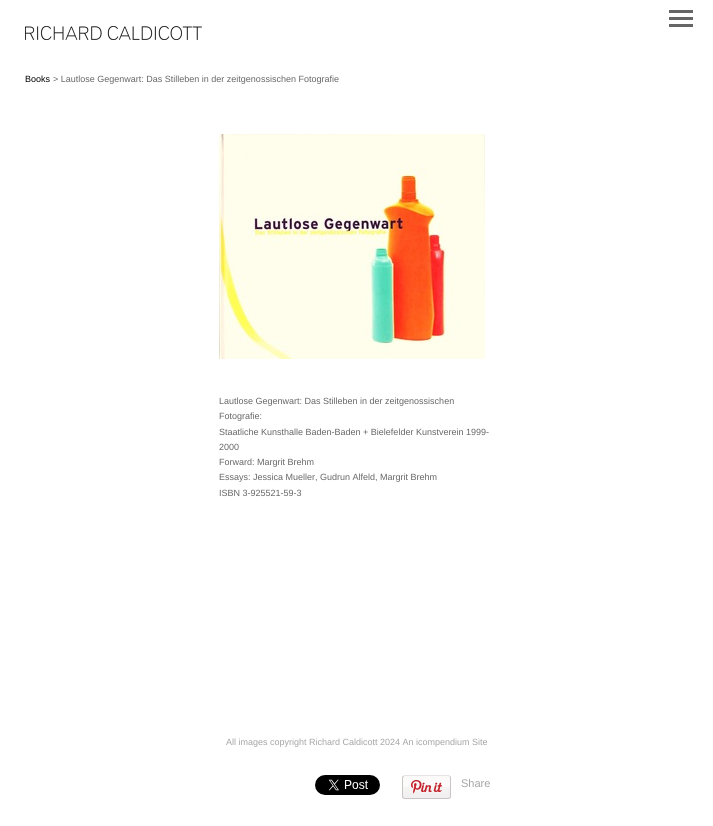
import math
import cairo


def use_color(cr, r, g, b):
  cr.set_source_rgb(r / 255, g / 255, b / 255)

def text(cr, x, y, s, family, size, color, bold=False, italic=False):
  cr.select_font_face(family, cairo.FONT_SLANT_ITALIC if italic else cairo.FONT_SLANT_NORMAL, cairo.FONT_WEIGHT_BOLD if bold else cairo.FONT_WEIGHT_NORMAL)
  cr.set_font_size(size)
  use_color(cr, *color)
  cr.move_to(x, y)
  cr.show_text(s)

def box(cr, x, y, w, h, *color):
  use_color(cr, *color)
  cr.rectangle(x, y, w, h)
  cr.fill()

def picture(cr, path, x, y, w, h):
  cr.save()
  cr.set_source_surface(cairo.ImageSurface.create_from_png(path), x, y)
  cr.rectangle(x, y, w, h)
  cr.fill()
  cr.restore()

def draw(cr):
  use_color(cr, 255, 255, 255)
  cr.paint()
  box(cr, 669, 10, 24, 3, 102, 102, 102)
  box(cr, 669, 17, 24, 3, 102, 102, 102)
  box(cr, 669, 24, 24, 3, 102, 102, 102)
  picture(cr, "img_01.png", 25, 26, 177, 14)
  picture(cr, "img_02.png", 219, 134, 266, 225)
  picture(cr, "img_03.png", 315, 775, 65, 20)
  picture(cr, "img_04.png", 402, 775, 49, 24)
  text(cr, 25, 82, "Books", "Liberation Sans", 9, (0, 0, 0))
  text(cr, 53, 82, "> Lautlose Gegenwart: Das Stilleben in der zeitgenossischen Fotografie", "Liberation Sans", 9, (102, 102, 102))
  text(cr, 219, 404, "Lautlose Gegenwart: Das Stilleben in der zeitgenossischen", "Liberation Sans", 9, (102, 102, 102))
  text(cr, 219, 419, "Fotografie:", "Liberation Sans", 9, (102, 102, 102))
  text(cr, 219, 435, "Staatliche Kunsthalle Baden-Baden + Bielefelder Kunstverein 1999-", "Liberation Sans", 9, (102, 102, 102))
  text(cr, 219, 450, "2000", "Liberation Sans", 9, (102, 102, 102))
  text(cr, 219, 465, "Forward: Margrit Brehm", "Liberation Sans", 9, (102, 102, 102))
  text(cr, 219, 480, "Essays: Jessica Mueller, Gudrun Alfeld, Margrit Brehm", "Liberation Sans", 9, (102, 102, 102))
  text(cr, 219, 496, "ISBN 3-925521-59-3", "Liberation Sans", 9, (102, 102, 102))
  text(cr, 226, 745, "All images copyright Richard Caldicott 2024 An icompendium Site", "Liberation Sans", 9, (164, 164, 164))
  text(cr, 461, 787, "Share", "Liberation Sans", 11, (164, 164, 164))


surface = cairo.ImageSurface(cairo.FORMAT_RGB24, 713, 826)
cr = cairo.Context(surface)
options = cairo.FontOptions()
options.set_hint_metrics(cairo.HINT_METRICS_OFF)
options.set_hint_style(cairo.HINT_STYLE_NONE)
cr.set_font_options(options)
cr.set_miter_limit(4)
draw(cr)
surface.write_to_png("out.png")
